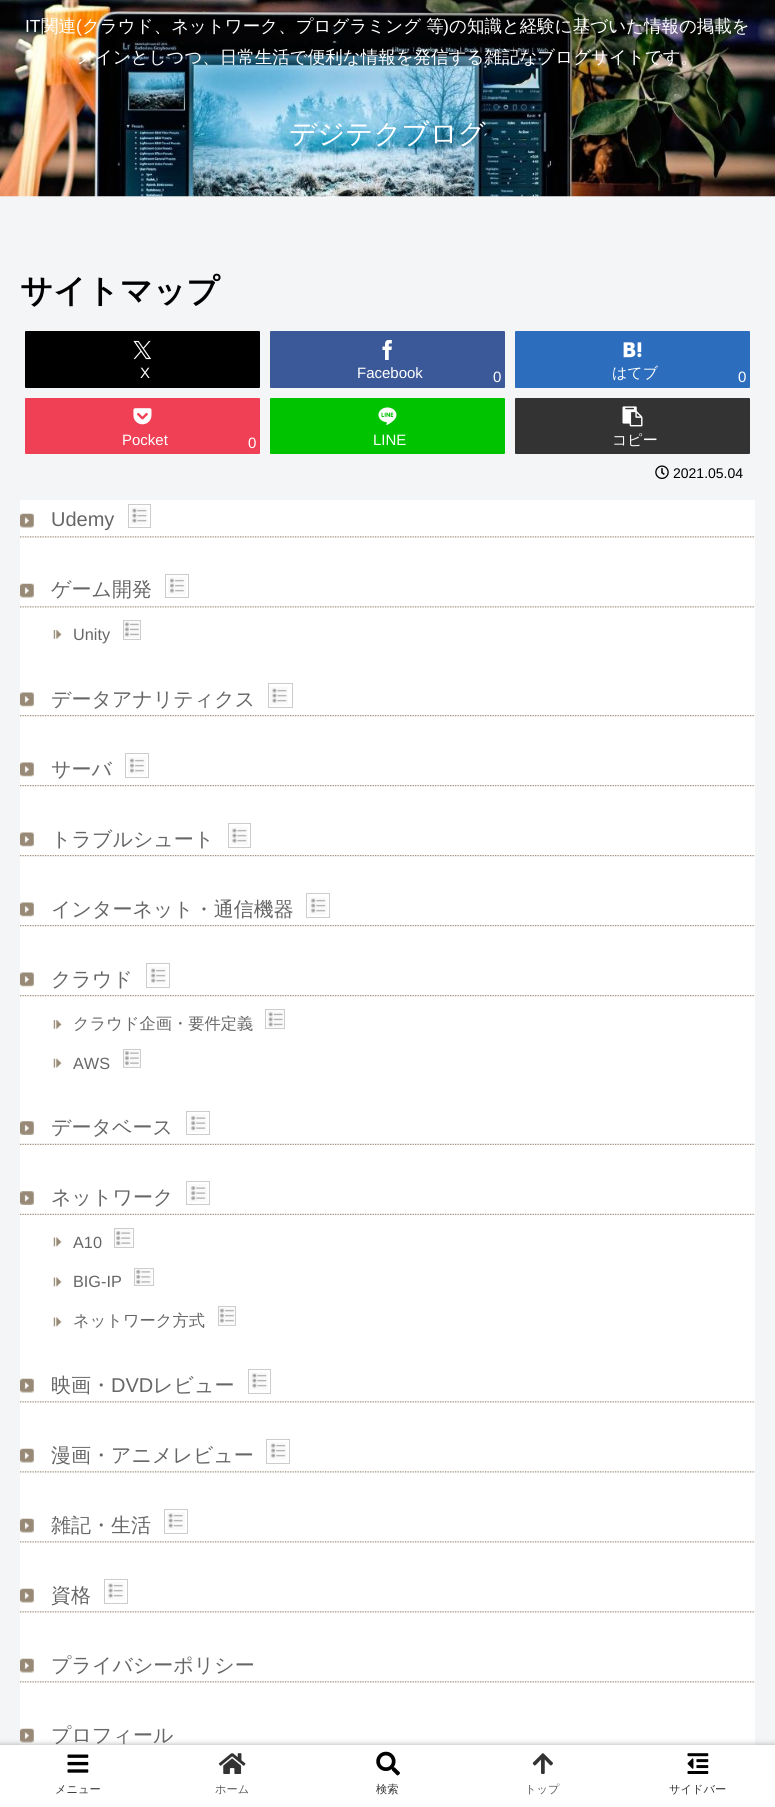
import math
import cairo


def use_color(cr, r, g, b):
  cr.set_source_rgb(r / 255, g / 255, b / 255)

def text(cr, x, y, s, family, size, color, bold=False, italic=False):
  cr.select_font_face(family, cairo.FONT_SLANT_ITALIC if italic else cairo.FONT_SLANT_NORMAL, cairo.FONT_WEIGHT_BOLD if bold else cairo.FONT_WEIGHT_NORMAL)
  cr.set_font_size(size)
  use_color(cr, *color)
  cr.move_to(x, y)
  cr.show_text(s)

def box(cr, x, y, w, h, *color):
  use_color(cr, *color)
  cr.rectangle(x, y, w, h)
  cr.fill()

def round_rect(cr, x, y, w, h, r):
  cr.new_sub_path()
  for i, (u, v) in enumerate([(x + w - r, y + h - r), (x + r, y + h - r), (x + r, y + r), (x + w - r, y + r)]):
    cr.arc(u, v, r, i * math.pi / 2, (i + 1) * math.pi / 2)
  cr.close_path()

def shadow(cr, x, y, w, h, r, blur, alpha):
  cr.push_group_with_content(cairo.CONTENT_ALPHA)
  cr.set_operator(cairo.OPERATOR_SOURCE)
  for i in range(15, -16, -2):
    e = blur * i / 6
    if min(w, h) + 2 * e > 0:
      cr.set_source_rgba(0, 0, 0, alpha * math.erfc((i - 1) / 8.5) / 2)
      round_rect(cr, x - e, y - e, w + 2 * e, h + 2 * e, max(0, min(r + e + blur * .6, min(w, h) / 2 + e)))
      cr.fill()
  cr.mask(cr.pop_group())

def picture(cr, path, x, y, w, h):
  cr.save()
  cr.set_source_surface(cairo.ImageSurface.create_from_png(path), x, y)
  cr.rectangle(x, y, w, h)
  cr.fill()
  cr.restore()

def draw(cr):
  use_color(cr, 244, 245, 247)
  cr.paint()
  picture(cr, "img_01.png", 0, 0, 775, 197)
  use_color(cr, 0, 0, 0)
  round_rect(cr, 25, 331, 235, 57, 1)
  cr.fill()
  picture(cr, "img_02.png", 133, 340, 19, 20)
  use_color(cr, 59, 89, 152)
  round_rect(cr, 270, 331, 235, 57, 1)
  cr.fill()
  picture(cr, "img_03.png", 382, 340, 10, 20)
  use_color(cr, 44, 110, 189)
  round_rect(cr, 515, 331, 235, 57, 1)
  cr.fill()
  picture(cr, "img_04.png", 623, 342, 19, 16)
  use_color(cr, 239, 64, 86)
  round_rect(cr, 25, 398, 235, 56, 1)
  cr.fill()
  picture(cr, "img_05.png", 133, 408, 19, 17)
  use_color(cr, 0, 195, 0)
  round_rect(cr, 270, 398, 235, 56, 1)
  cr.fill()
  picture(cr, "img_06.png", 378, 407, 19, 18)
  use_color(cr, 51, 51, 51)
  round_rect(cr, 515, 398, 235, 56, 1)
  cr.fill()
  picture(cr, "img_07.png", 622, 406, 21, 21)
  picture(cr, "img_08.png", 655, 465, 14, 14)
  box(cr, 20, 500, 735, 1245, 255, 255, 255)
  picture(cr, "img_09.png", 20, 536, 735, 2)
  picture(cr, "img_10.png", 20, 513, 14, 15)
  picture(cr, "img_11.png", 130, 507, 18, 18)
  cr.rectangle(128.5, 504.5, 22, 23)
  use_color(cr, 204, 204, 204)
  cr.set_line_width(1)
  cr.stroke()
  picture(cr, "img_09.png", 20, 606, 735, 2)
  picture(cr, "img_12.png", 20, 583, 14, 15)
  picture(cr, "img_13.png", 168, 577, 18, 18)
  cr.rectangle(165.5, 574.5, 23, 23)
  cr.stroke()
  picture(cr, "img_14.png", 53, 630, 9, 9)
  picture(cr, "img_15.png", 124, 621, 16, 17)
  cr.rectangle(123.5, 620.5, 17, 19)
  cr.stroke()
  picture(cr, "img_16.png", 20, 715, 735, 2)
  picture(cr, "img_17.png", 20, 692, 14, 15)
  picture(cr, "img_18.png", 270, 687, 18, 18)
  cr.rectangle(268.5, 683.5, 24, 24)
  cr.stroke()
  picture(cr, "img_16.png", 20, 785, 735, 2)
  picture(cr, "img_17.png", 20, 762, 14, 15)
  picture(cr, "img_19.png", 128, 757, 18, 18)
  cr.rectangle(125.5, 753.5, 23, 24)
  cr.stroke()
  picture(cr, "img_16.png", 20, 855, 735, 2)
  picture(cr, "img_17.png", 20, 832, 14, 15)
  picture(cr, "img_11.png", 230, 827, 18, 18)
  cr.rectangle(228.5, 823.5, 22, 24)
  cr.stroke()
  picture(cr, "img_16.png", 20, 925, 735, 2)
  picture(cr, "img_17.png", 20, 902, 14, 15)
  picture(cr, "img_20.png", 309, 897, 18, 18)
  cr.rectangle(306.5, 893.5, 23, 24)
  cr.stroke()
  picture(cr, "img_16.png", 20, 995, 735, 2)
  picture(cr, "img_17.png", 20, 972, 14, 15)
  picture(cr, "img_21.png", 149, 967, 18, 18)
  cr.rectangle(146.5, 963.5, 23, 24)
  cr.stroke()
  picture(cr, "img_14.png", 53, 1020, 9, 9)
  picture(cr, "img_22.png", 267, 1010, 17, 18)
  cr.rectangle(265.5, 1009.5, 19, 19)
  cr.stroke()
  picture(cr, "img_23.png", 53, 1058, 9, 10)
  picture(cr, "img_24.png", 124, 1050, 16, 17)
  cr.rectangle(123.5, 1049.5, 17, 18)
  cr.stroke()
  picture(cr, "img_25.png", 20, 1143, 735, 2)
  picture(cr, "img_26.png", 20, 1121, 14, 14)
  picture(cr, "img_27.png", 189, 1114, 18, 18)
  cr.rectangle(186.5, 1111.5, 23, 23)
  cr.stroke()
  picture(cr, "img_25.png", 20, 1213, 735, 2)
  picture(cr, "img_26.png", 20, 1191, 14, 14)
  picture(cr, "img_27.png", 189, 1184, 18, 18)
  cr.rectangle(186.5, 1181.5, 23, 23)
  cr.stroke()
  picture(cr, "img_28.png", 53, 1237, 9, 10)
  picture(cr, "img_29.png", 115, 1229, 17, 18)
  cr.rectangle(114.5, 1228.5, 19, 19)
  cr.stroke()
  picture(cr, "img_28.png", 53, 1277, 9, 10)
  picture(cr, "img_30.png", 135, 1269, 17, 16)
  cr.rectangle(134.5, 1268.5, 19, 17)
  cr.stroke()
  picture(cr, "img_28.png", 53, 1317, 9, 10)
  picture(cr, "img_31.png", 219, 1307, 16, 18)
  cr.rectangle(218.5, 1306.5, 17, 19)
  cr.stroke()
  picture(cr, "img_09.png", 20, 1401, 735, 2)
  picture(cr, "img_10.png", 20, 1378, 14, 15)
  picture(cr, "img_11.png", 250, 1372, 18, 18)
  cr.rectangle(248.5, 1369.5, 22, 24)
  cr.stroke()
  picture(cr, "img_09.png", 20, 1471, 735, 2)
  picture(cr, "img_10.png", 20, 1448, 14, 15)
  picture(cr, "img_20.png", 269, 1442, 18, 18)
  cr.rectangle(266.5, 1439.5, 23, 24)
  cr.stroke()
  picture(cr, "img_09.png", 20, 1541, 735, 2)
  picture(cr, "img_10.png", 20, 1518, 14, 15)
  picture(cr, "img_32.png", 167, 1512, 18, 18)
  cr.rectangle(164.5, 1509.5, 23, 24)
  cr.stroke()
  picture(cr, "img_09.png", 20, 1611, 735, 2)
  picture(cr, "img_10.png", 20, 1588, 14, 15)
  picture(cr, "img_32.png", 107, 1582, 18, 18)
  cr.rectangle(104.5, 1579.5, 23, 24)
  cr.stroke()
  picture(cr, "img_09.png", 20, 1681, 735, 2)
  picture(cr, "img_10.png", 20, 1658, 14, 15)
  picture(cr, "img_10.png", 20, 1728, 14, 15)
  use_color(cr, 169, 169, 169)
  shadow(cr, 0, 1745, 775, 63, 0, 3, 1)
  box(cr, 0, 1745, 775, 62, 255, 255, 255)
  picture(cr, "img_33.png", 67, 1754, 22, 19)
  picture(cr, "img_34.png", 218, 1753, 28, 21)
  picture(cr, "img_35.png", 376, 1751, 24, 25)
  picture(cr, "img_36.png", 532, 1753, 21, 21)
  picture(cr, "img_37.png", 687, 1753, 22, 21)
  text(cr, 25, 32, "IT", "Liberation Sans", 17.5, (255, 255, 255))
  text(cr, 41, 32, "関連", "WenQuanYi Zen Hei Medium", 17.5, (255, 255, 255))
  text(cr, 76, 32, "(", "Liberation Sans", 17.5, (255, 255, 255))
  text(cr, 82, 32, "クラウド、ネットワーク、プログラミング 等", "WenQuanYi Zen Hei Medium", 17.5, (255, 255, 255))
  text(cr, 443, 32, ")", "Liberation Sans", 17.5, (255, 255, 255))
  text(cr, 449, 32, "の知識と経験に基づいた情報の掲載を", "WenQuanYi Zen Hei Medium", 17.5, (255, 255, 255))
  text(cr, 77, 63, "メインとしつつ、日常生活で便利な情報を発信する雑記なブログサイトです。", "WenQuanYi Zen Hei Medium", 17.5, (255, 255, 255))
  text(cr, 289, 143, "デジテクブログ", "WenQuanYi Zen Hei Medium", 27.5, (255, 255, 255))
  text(cr, 20, 302, "サイトマップ", "WenQuanYi Zen Hei", 32.5, (0, 0, 0), bold=True)
  text(cr, 140, 378, "X", "Liberation Sans", 15, (255, 255, 255))
  text(cr, 357, 378, "Facebook", "Liberation Sans", 15, (255, 255, 255))
  text(cr, 493, 382, "0", "Liberation Sans", 15, (255, 255, 255))
  text(cr, 612, 378, "はてブ", "WenQuanYi Zen Hei Medium", 15, (255, 255, 255))
  text(cr, 738, 382, "0", "Liberation Sans", 15, (255, 255, 255))
  text(cr, 122, 445, "Pocket", "Liberation Sans", 15, (255, 255, 255))
  text(cr, 248, 448, "0", "Liberation Sans", 15, (255, 255, 255))
  text(cr, 373, 445, "LINE", "Liberation Sans", 15, (255, 255, 255))
  text(cr, 612, 445, "コピー", "WenQuanYi Zen Hei Medium", 15, (255, 255, 255))
  text(cr, 673, 478, "2021.05.04", "Liberation Sans", 14, (0, 0, 0))
  text(cr, 51, 526, "Udemy", "Liberation Sans", 20, (102, 102, 102))
  text(cr, 51, 596, "ゲーム開発", "WenQuanYi Zen Hei Medium", 20, (102, 102, 102))
  text(cr, 73, 640, "Unity", "Liberation Sans", 16.25, (102, 102, 102))
  text(cr, 51, 706, "データアナリティクス", "WenQuanYi Zen Hei Medium", 20, (102, 102, 102))
  text(cr, 51, 776, "サーバ", "WenQuanYi Zen Hei Medium", 20, (102, 102, 102))
  text(cr, 51, 846, "トラブルシュート", "WenQuanYi Zen Hei Medium", 20, (102, 102, 102))
  text(cr, 51, 916, "インターネット・通信機器", "WenQuanYi Zen Hei Medium", 20, (102, 102, 102))
  text(cr, 51, 986, "クラウド", "WenQuanYi Zen Hei Medium", 20, (102, 102, 102))
  text(cr, 73, 1029, "クラウド企画・要件定義", "WenQuanYi Zen Hei Medium", 16.25, (102, 102, 102))
  text(cr, 73, 1069, "AWS", "Liberation Sans", 16.25, (102, 102, 102))
  text(cr, 51, 1134, "データベース", "WenQuanYi Zen Hei Medium", 20, (102, 102, 102))
  text(cr, 51, 1204, "ネットワーク", "WenQuanYi Zen Hei Medium", 20, (102, 102, 102))
  text(cr, 73, 1248, "A10", "Liberation Sans", 16.25, (102, 102, 102))
  text(cr, 73, 1287, "BIG-IP", "Liberation Sans", 16.25, (102, 102, 102))
  text(cr, 73, 1326, "ネットワーク方式", "WenQuanYi Zen Hei Medium", 16.25, (102, 102, 102))
  text(cr, 51, 1392, "映画・", "WenQuanYi Zen Hei Medium", 20, (102, 102, 102))
  text(cr, 111, 1392, "DVD", "Liberation Sans", 20, (102, 102, 102))
  text(cr, 153, 1392, "レビュー", "WenQuanYi Zen Hei Medium", 20, (102, 102, 102))
  text(cr, 51, 1462, "漫画・アニメレビュー", "WenQuanYi Zen Hei Medium", 20, (102, 102, 102))
  text(cr, 51, 1532, "雑記・生活", "WenQuanYi Zen Hei Medium", 20, (102, 102, 102))
  text(cr, 51, 1602, "資格", "WenQuanYi Zen Hei Medium", 20, (102, 102, 102))
  text(cr, 51, 1672, "プライバシーポリシー", "WenQuanYi Zen Hei Medium", 20, (102, 102, 102))
  text(cr, 51, 1742, "プロフィール", "WenQuanYi Zen Hei Medium", 20, (102, 102, 102))
  text(cr, 55, 1793, "メニュー", "WenQuanYi Zen Hei Medium", 11.25, (51, 51, 51))
  text(cr, 215, 1793, "ホーム", "WenQuanYi Zen Hei Medium", 11.25, (92, 92, 92))
  text(cr, 376, 1793, "検索", "WenQuanYi Zen Hei Medium", 11.25, (51, 51, 51))
  text(cr, 525, 1793, "トップ", "WenQuanYi Zen Hei Medium", 11.25, (92, 92, 92))
  text(cr, 669, 1793, "サイドバー", "WenQuanYi Zen Hei Medium", 11.25, (51, 51, 51))


surface = cairo.ImageSurface(cairo.FORMAT_RGB24, 775, 1807)
cr = cairo.Context(surface)
options = cairo.FontOptions()
options.set_hint_metrics(cairo.HINT_METRICS_OFF)
options.set_hint_style(cairo.HINT_STYLE_NONE)
cr.set_font_options(options)
cr.set_miter_limit(4)
draw(cr)
surface.write_to_png("out.png")
